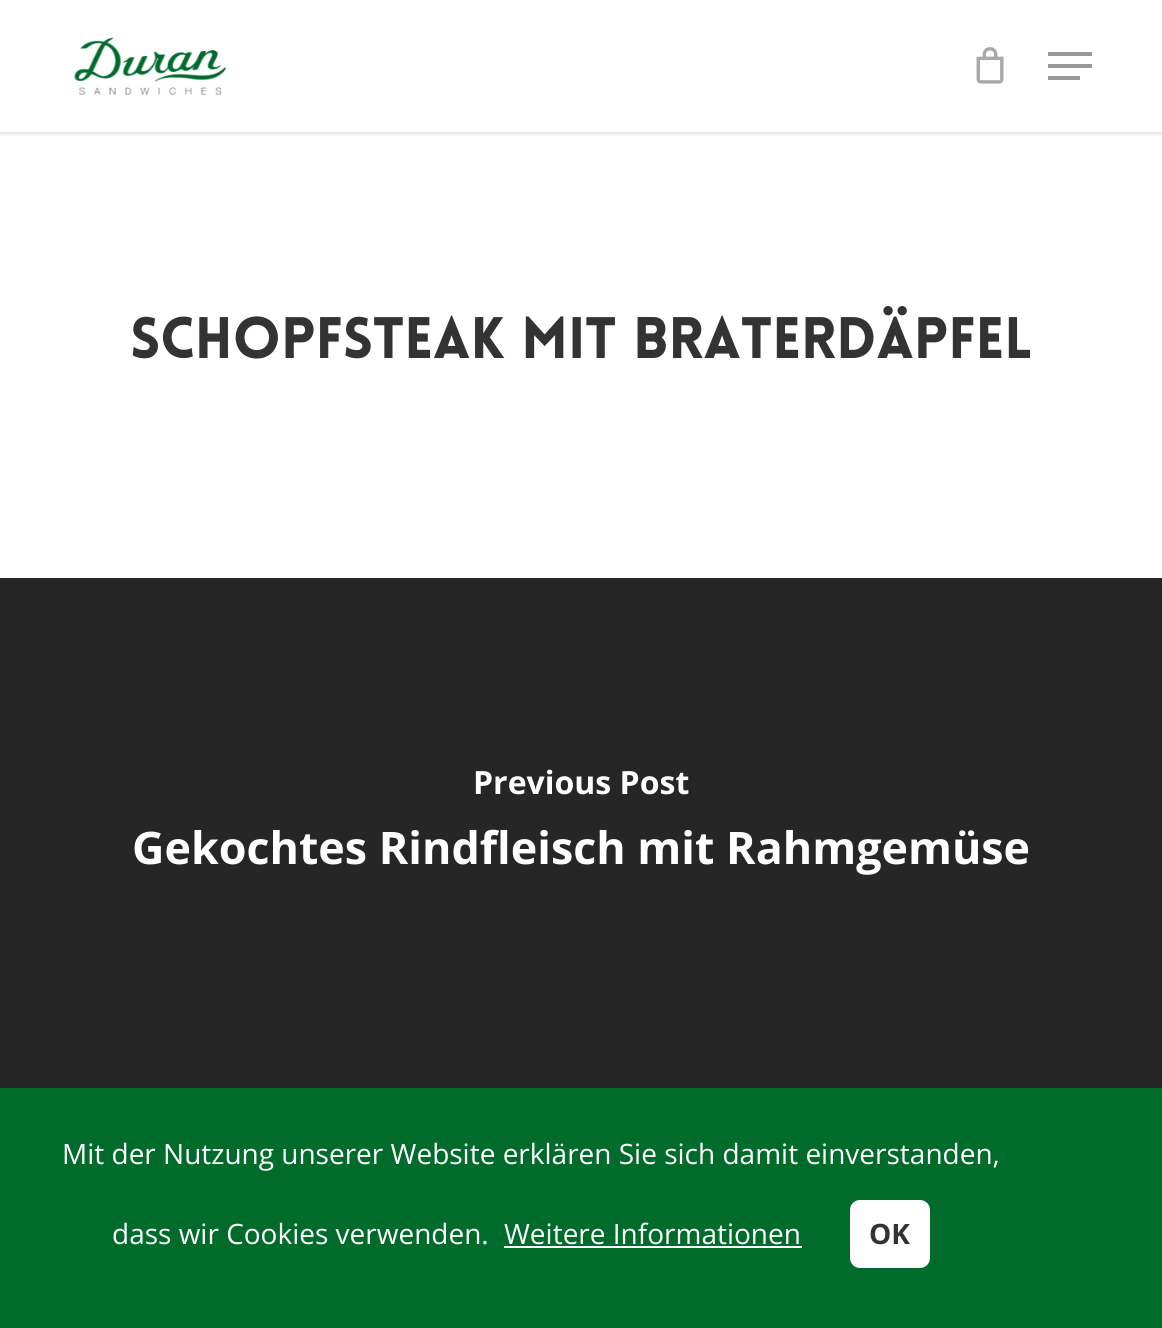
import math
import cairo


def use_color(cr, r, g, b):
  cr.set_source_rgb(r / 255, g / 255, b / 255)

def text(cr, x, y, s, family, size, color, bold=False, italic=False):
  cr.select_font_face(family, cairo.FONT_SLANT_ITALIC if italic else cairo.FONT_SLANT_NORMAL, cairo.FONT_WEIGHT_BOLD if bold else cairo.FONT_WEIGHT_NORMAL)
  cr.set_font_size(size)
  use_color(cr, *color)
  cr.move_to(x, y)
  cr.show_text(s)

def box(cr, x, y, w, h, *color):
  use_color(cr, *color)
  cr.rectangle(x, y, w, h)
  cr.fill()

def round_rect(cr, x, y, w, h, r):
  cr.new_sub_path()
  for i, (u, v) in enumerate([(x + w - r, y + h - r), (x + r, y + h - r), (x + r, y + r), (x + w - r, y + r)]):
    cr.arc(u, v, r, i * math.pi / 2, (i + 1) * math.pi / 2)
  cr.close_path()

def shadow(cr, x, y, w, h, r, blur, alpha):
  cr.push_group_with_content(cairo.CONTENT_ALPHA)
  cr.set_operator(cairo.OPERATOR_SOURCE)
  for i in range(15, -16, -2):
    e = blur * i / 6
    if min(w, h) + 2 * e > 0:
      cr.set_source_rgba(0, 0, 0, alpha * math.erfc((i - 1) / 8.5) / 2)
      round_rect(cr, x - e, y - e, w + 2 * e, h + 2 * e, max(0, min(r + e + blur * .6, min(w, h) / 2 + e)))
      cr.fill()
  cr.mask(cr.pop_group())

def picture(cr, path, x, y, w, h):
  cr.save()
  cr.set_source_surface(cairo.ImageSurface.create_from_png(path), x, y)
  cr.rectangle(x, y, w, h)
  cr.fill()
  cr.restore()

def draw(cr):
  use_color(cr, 255, 255, 255)
  cr.paint()
  cr.save()
  cr.rectangle(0, 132, 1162, 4)
  cr.clip()
  use_color(cr, 0, 0, 0)
  shadow(cr, 0, 0, 1162, 132, 0, 3, 0.22)
  cr.restore()
  picture(cr, "img_01.png", 74, 37, 152, 58)
  picture(cr, "img_02.png", 976, 47, 28, 37)
  box(cr, 1048, 52, 44, 4, 153, 153, 153)
  box(cr, 1048, 76, 32, 4, 153, 153, 153)
  box(cr, 1048, 64, 44, 4, 153, 153, 153)
  box(cr, 0, 578, 1162, 510, 38, 38, 38)
  box(cr, 0, 1088, 1162, 240, 0, 107, 43)
  box(cr, 504, 1246, 298, 2, 255, 255, 255)
  round_rect(cr, 850, 1200, 80, 68, 10)
  cr.fill()
  text(cr, 130, 358, "Schopfsteak mit Braterdäpfel", "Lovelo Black", 57.25, (51, 51, 51))
  text(cr, 473, 794, "Previous Post", "Open Sans", 32, (255, 255, 255), bold=True)
  text(cr, 132, 864, "Gekochtes Rindfleisch mit Rahmgemüse", "Open Sans", 44.8, (255, 255, 255), bold=True)
  text(cr, 62, 1164, "Mit der Nutzung unserer Website erklären Sie sich damit einverstanden,", "Open Sans", 28, (255, 255, 255))
  text(cr, 112, 1244, "dass wir Cookies verwenden.", "Open Sans", 28, (255, 255, 255))
  text(cr, 504, 1244, "Weitere Informationen", "Open Sans", 28, (255, 255, 255))
  text(cr, 869, 1244, "OK", "Open Sans", 28, (51, 51, 51), bold=True)


surface = cairo.ImageSurface(cairo.FORMAT_RGB24, 1162, 1328)
cr = cairo.Context(surface)
options = cairo.FontOptions()
options.set_hint_metrics(cairo.HINT_METRICS_OFF)
options.set_hint_style(cairo.HINT_STYLE_NONE)
cr.set_font_options(options)
cr.set_miter_limit(4)
draw(cr)
surface.write_to_png("out.png")
